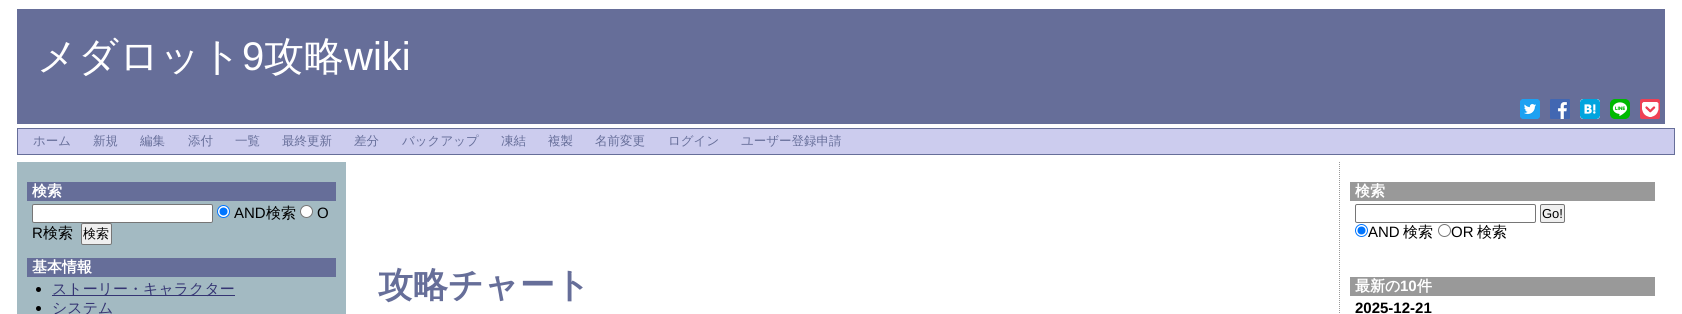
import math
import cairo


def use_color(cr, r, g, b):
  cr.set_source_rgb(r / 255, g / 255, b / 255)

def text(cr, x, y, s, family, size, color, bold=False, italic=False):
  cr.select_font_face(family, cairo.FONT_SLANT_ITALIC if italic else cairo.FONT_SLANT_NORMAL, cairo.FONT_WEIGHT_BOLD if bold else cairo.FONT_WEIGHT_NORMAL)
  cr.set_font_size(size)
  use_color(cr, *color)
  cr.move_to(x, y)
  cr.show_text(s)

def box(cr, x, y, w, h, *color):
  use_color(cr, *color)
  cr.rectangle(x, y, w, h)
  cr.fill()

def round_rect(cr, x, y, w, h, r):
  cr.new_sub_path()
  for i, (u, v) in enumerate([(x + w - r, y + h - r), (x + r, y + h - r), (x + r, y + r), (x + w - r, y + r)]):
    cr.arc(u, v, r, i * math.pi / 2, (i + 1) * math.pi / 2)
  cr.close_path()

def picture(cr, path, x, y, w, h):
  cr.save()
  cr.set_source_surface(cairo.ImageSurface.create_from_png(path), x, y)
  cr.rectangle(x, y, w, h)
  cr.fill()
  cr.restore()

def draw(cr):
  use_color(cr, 255, 255, 255)
  cr.paint()
  box(cr, 17, 9, 1648, 115, 102, 110, 153)
  picture(cr, "img_01.png", 1520, 99, 20, 20)
  picture(cr, "img_02.png", 1550, 99, 20, 20)
  picture(cr, "img_03.png", 1580, 99, 20, 20)
  picture(cr, "img_04.png", 1610, 99, 20, 20)
  picture(cr, "img_05.png", 1640, 99, 20, 20)
  use_color(cr, 204, 204, 238)
  cr.rectangle(17.5, 128.5, 1657, 26)
  cr.fill_preserve()
  use_color(cr, 102, 110, 153)
  cr.set_line_width(1)
  cr.stroke()
  box(cr, 17, 162, 329, 152, 163, 186, 194)
  box(cr, 27, 182, 309, 19, 102, 110, 153)
  use_color(cr, 255, 255, 255)
  round_rect(cr, 32.5, 204.5, 180, 18, 1.5)
  cr.fill_preserve()
  use_color(cr, 118, 118, 118)
  cr.stroke()
  use_color(cr, 255, 255, 255)
  cr.arc(223.5, 211.5, 6, 0, 2 * math.pi)
  cr.fill_preserve()
  use_color(cr, 0, 117, 255)
  cr.stroke()
  cr.arc(223.5, 211.5, 4, 0, 2 * math.pi)
  cr.fill()
  use_color(cr, 255, 255, 255)
  cr.arc(306.5, 211.5, 6, 0, 2 * math.pi)
  cr.fill_preserve()
  use_color(cr, 118, 118, 118)
  cr.stroke()
  use_color(cr, 239, 239, 239)
  round_rect(cr, 81.5, 223.5, 30, 21, 1.5)
  cr.fill_preserve()
  use_color(cr, 118, 118, 118)
  cr.stroke()
  box(cr, 27, 258, 309, 19, 102, 110, 153)
  use_color(cr, 0, 0, 0)
  cr.arc(38.5, 289.5, 2.5, 0, 2 * math.pi)
  cr.fill()
  box(cr, 52, 295, 183, 1, 53, 53, 115)
  use_color(cr, 0, 0, 0)
  cr.arc(38.5, 308.5, 2.5, 0, 2 * math.pi)
  cr.fill()
  cr.new_path()
  cr.move_to(1339.5, 162)
  cr.line_to(1339.5, 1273)
  use_color(cr, 153, 153, 153)
  cr.set_dash([1, 1])
  cr.stroke()
  box(cr, 1350, 182, 305, 19, 153, 153, 153)
  round_rect(cr, 1355.5, 204.5, 180, 18, 1.5)
  use_color(cr, 118, 118, 118)
  cr.set_dash([])
  cr.stroke()
  use_color(cr, 239, 239, 239)
  round_rect(cr, 1540.5, 204.5, 24, 18, 1.5)
  cr.fill_preserve()
  use_color(cr, 118, 118, 118)
  cr.stroke()
  cr.arc(1361.5, 230.5, 6, 0, 2 * math.pi)
  use_color(cr, 0, 117, 255)
  cr.stroke()
  cr.arc(1361.5, 230.5, 4, 0, 2 * math.pi)
  cr.fill()
  cr.arc(1444.5, 230.5, 6, 0, 2 * math.pi)
  use_color(cr, 118, 118, 118)
  cr.stroke()
  box(cr, 1350, 277, 305, 19, 153, 153, 153)
  text(cr, 37, 70, "メダロット", "WenQuanYi Zen Hei Medium", 40, (255, 255, 255))
  text(cr, 242, 70, "9", "Liberation Sans", 40, (255, 255, 255))
  text(cr, 264, 70, "攻略", "WenQuanYi Zen Hei Medium", 40, (255, 255, 255))
  text(cr, 344, 70, "wiki", "Liberation Sans", 40, (255, 255, 255))
  text(cr, 33, 145, "ホーム", "WenQuanYi Zen Hei Medium", 12.5, (102, 110, 153))
  text(cr, 93, 145, "新規", "WenQuanYi Zen Hei Medium", 12.5, (102, 110, 153))
  text(cr, 140, 145, "編集", "WenQuanYi Zen Hei Medium", 12.5, (102, 110, 153))
  text(cr, 188, 145, "添付", "WenQuanYi Zen Hei Medium", 12.5, (102, 110, 153))
  text(cr, 235, 145, "一覧", "WenQuanYi Zen Hei Medium", 12.5, (102, 110, 153))
  text(cr, 282, 145, "最終更新", "WenQuanYi Zen Hei Medium", 12.5, (102, 110, 153))
  text(cr, 354, 145, "差分", "WenQuanYi Zen Hei Medium", 12.5, (102, 110, 153))
  text(cr, 402, 145, "バックアップ", "WenQuanYi Zen Hei Medium", 12.5, (102, 110, 153))
  text(cr, 501, 145, "凍結", "WenQuanYi Zen Hei Medium", 12.5, (102, 110, 153))
  text(cr, 548, 145, "複製", "WenQuanYi Zen Hei Medium", 12.5, (102, 110, 153))
  text(cr, 595, 145, "名前変更", "WenQuanYi Zen Hei Medium", 12.5, (102, 110, 153))
  text(cr, 668, 145, "ログイン", "WenQuanYi Zen Hei Medium", 12.5, (102, 110, 153))
  text(cr, 741, 145, "ユーザー登録申請", "WenQuanYi Zen Hei Medium", 12.5, (102, 110, 153))
  text(cr, 32, 196, "検索", "WenQuanYi Zen Hei", 15, (255, 255, 255), bold=True)
  text(cr, 234, 218, "AND", "Liberation Sans", 15, (0, 0, 0))
  text(cr, 266, 218, "検索", "WenQuanYi Zen Hei Medium", 15, (0, 0, 0))
  text(cr, 317, 218, "O", "Liberation Sans", 15, (0, 0, 0))
  text(cr, 32, 238, "R", "Liberation Sans", 15, (0, 0, 0))
  text(cr, 43, 238, "検索", "WenQuanYi Zen Hei Medium", 15, (0, 0, 0))
  text(cr, 83, 238, "検索", "WenQuanYi Zen Hei Medium", 13, (0, 0, 0))
  text(cr, 32, 272, "基本情報", "WenQuanYi Zen Hei", 15, (255, 255, 255), bold=True)
  text(cr, 52, 294, "ストーリー・キャラクター", "WenQuanYi Zen Hei Medium", 15, (53, 53, 115))
  text(cr, 52, 313, "システム", "WenQuanYi Zen Hei Medium", 15, (53, 53, 115))
  text(cr, 378, 297, "攻略チャート", "WenQuanYi Zen Hei", 35, (102, 110, 153), bold=True)
  text(cr, 1355, 196, "検索", "WenQuanYi Zen Hei", 15, (255, 255, 255), bold=True)
  text(cr, 1542, 218, "Go!", "Liberation Sans", 13, (0, 0, 0))
  text(cr, 1368, 237, "AND", "Liberation Sans", 15, (0, 0, 0))
  text(cr, 1403, 237, "検索", "WenQuanYi Zen Hei Medium", 15, (0, 0, 0))
  text(cr, 1451, 237, "OR", "Liberation Sans", 15, (0, 0, 0))
  text(cr, 1477, 237, "検索", "WenQuanYi Zen Hei Medium", 15, (0, 0, 0))
  text(cr, 1355, 291, "最新の", "WenQuanYi Zen Hei", 15, (255, 255, 255), bold=True)
  text(cr, 1400, 291, "10", "Liberation Sans", 15, (255, 255, 255), bold=True)
  text(cr, 1417, 291, "件", "WenQuanYi Zen Hei", 15, (255, 255, 255), bold=True)
  text(cr, 1355, 313, "2025-12-21", "Liberation Sans", 15, (0, 0, 0), bold=True)


surface = cairo.ImageSurface(cairo.FORMAT_RGB24, 1682, 314)
cr = cairo.Context(surface)
options = cairo.FontOptions()
options.set_hint_metrics(cairo.HINT_METRICS_OFF)
options.set_hint_style(cairo.HINT_STYLE_NONE)
cr.set_font_options(options)
cr.set_miter_limit(4)
draw(cr)
surface.write_to_png("out.png")
